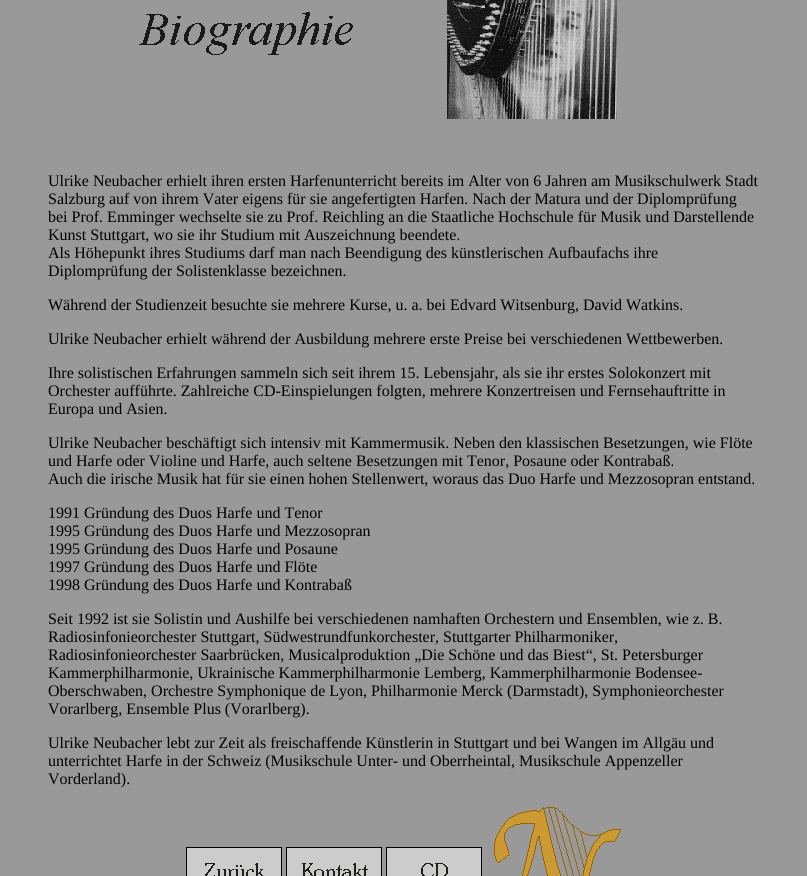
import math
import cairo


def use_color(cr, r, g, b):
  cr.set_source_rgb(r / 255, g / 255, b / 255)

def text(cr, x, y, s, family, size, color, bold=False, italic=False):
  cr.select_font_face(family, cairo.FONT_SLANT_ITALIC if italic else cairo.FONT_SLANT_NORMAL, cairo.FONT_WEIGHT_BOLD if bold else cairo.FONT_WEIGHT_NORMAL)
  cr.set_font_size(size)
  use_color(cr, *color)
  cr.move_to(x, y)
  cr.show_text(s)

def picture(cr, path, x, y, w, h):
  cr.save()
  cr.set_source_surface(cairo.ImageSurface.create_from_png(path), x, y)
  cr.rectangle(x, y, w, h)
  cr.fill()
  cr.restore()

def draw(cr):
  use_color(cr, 153, 153, 153)
  cr.paint()
  picture(cr, "img_01.png", 139, 12, 214, 43)
  picture(cr, "img_02.png", 447, 0, 170, 119)
  picture(cr, "img_03.png", 186, 847, 96, 29)
  picture(cr, "img_04.png", 286, 847, 96, 29)
  picture(cr, "img_05.png", 386, 847, 96, 29)
  picture(cr, "img_06.png", 494, 807, 127, 69)
  text(cr, 48, 186, "Ulrike Neubacher erhielt ihren ersten Harfenunterricht bereits im Alter von 6 Jahren am Musikschulwerk Stadt", "Liberation Serif", 16, (0, 0, 0))
  text(cr, 48, 204, "Salzburg auf von ihrem Vater eigens für sie angefertigten Harfen. Nach der Matura und der Diplomprüfung", "Liberation Serif", 16, (0, 0, 0))
  text(cr, 48, 222, "bei Prof. Emminger wechselte sie zu Prof. Reichling an die Staatliche Hochschule für Musik und Darstellende", "Liberation Serif", 16, (0, 0, 0))
  text(cr, 48, 240, "Kunst Stuttgart, wo sie ihr Studium mit Auszeichnung beendete.", "Liberation Serif", 16, (0, 0, 0))
  text(cr, 48, 258, "Als Höhepunkt ihres Studiums darf man nach Beendigung des künstlerischen Aufbaufachs ihre", "Liberation Serif", 16, (0, 0, 0))
  text(cr, 48, 276, "Diplomprüfung der Solistenklasse bezeichnen.", "Liberation Serif", 16, (0, 0, 0))
  text(cr, 48, 310, "Während der Studienzeit besuchte sie mehrere Kurse, u. a. bei Edvard Witsenburg, David Watkins.", "Liberation Serif", 16, (0, 0, 0))
  text(cr, 48, 344, "Ulrike Neubacher erhielt während der Ausbildung mehrere erste Preise bei verschiedenen Wettbewerben.", "Liberation Serif", 16, (0, 0, 0))
  text(cr, 48, 378, "Ihre solistischen Erfahrungen sammeln sich seit ihrem 15. Lebensjahr, als sie ihr erstes Solokonzert mit", "Liberation Serif", 16, (0, 0, 0))
  text(cr, 48, 396, "Orchester aufführte. Zahlreiche CD-Einspielungen folgten, mehrere Konzertreisen und Fernsehauftritte in", "Liberation Serif", 16, (0, 0, 0))
  text(cr, 48, 414, "Europa und Asien.", "Liberation Serif", 16, (0, 0, 0))
  text(cr, 48, 448, "Ulrike Neubacher beschäftigt sich intensiv mit Kammermusik. Neben den klassischen Besetzungen, wie Flöte", "Liberation Serif", 16, (0, 0, 0))
  text(cr, 48, 466, "und Harfe oder Violine und Harfe, auch seltene Besetzungen mit Tenor, Posaune oder Kontrabaß.", "Liberation Serif", 16, (0, 0, 0))
  text(cr, 48, 484, "Auch die irische Musik hat für sie einen hohen Stellenwert, woraus das Duo Harfe und Mezzosopran entstand.", "Liberation Serif", 16, (0, 0, 0))
  text(cr, 48, 518, "1991 Gründung des Duos Harfe und Tenor", "Liberation Serif", 16, (0, 0, 0))
  text(cr, 48, 536, "1995 Gründung des Duos Harfe und Mezzosopran", "Liberation Serif", 16, (0, 0, 0))
  text(cr, 48, 554, "1995 Gründung des Duos Harfe und Posaune", "Liberation Serif", 16, (0, 0, 0))
  text(cr, 48, 572, "1997 Gründung des Duos Harfe und Flöte", "Liberation Serif", 16, (0, 0, 0))
  text(cr, 48, 590, "1998 Gründung des Duos Harfe und Kontrabaß", "Liberation Serif", 16, (0, 0, 0))
  text(cr, 48, 624, "Seit 1992 ist sie Solistin und Aushilfe bei verschiedenen namhaften Orchestern und Ensemblen, wie z. B.", "Liberation Serif", 16, (0, 0, 0))
  text(cr, 48, 642, "Radiosinfonieorchester Stuttgart, Südwestrundfunkorchester, Stuttgarter Philharmoniker,", "Liberation Serif", 16, (0, 0, 0))
  text(cr, 48, 660, "Radiosinfonieorchester Saarbrücken, Musicalproduktion „Die Schöne und das Biest“, St. Petersburger", "Liberation Serif", 16, (0, 0, 0))
  text(cr, 48, 678, "Kammerphilharmonie, Ukrainische Kammerphilharmonie Lemberg, Kammerphilharmonie Bodensee-", "Liberation Serif", 16, (0, 0, 0))
  text(cr, 48, 696, "Oberschwaben, Orchestre Symphonique de Lyon, Philharmonie Merck (Darmstadt), Symphonieorchester", "Liberation Serif", 16, (0, 0, 0))
  text(cr, 48, 714, "Vorarlberg, Ensemble Plus (Vorarlberg).", "Liberation Serif", 16, (0, 0, 0))
  text(cr, 48, 748, "Ulrike Neubacher lebt zur Zeit als freischaffende Künstlerin in Stuttgart und bei Wangen im Allgäu und", "Liberation Serif", 16, (0, 0, 0))
  text(cr, 48, 766, "unterrichtet Harfe in der Schweiz (Musikschule Unter- und Oberrheintal, Musikschule Appenzeller", "Liberation Serif", 16, (0, 0, 0))
  text(cr, 48, 784, "Vorderland).", "Liberation Serif", 16, (0, 0, 0))


surface = cairo.ImageSurface(cairo.FORMAT_RGB24, 807, 876)
cr = cairo.Context(surface)
options = cairo.FontOptions()
options.set_hint_metrics(cairo.HINT_METRICS_OFF)
options.set_hint_style(cairo.HINT_STYLE_NONE)
cr.set_font_options(options)
cr.set_miter_limit(4)
draw(cr)
surface.write_to_png("out.png")
